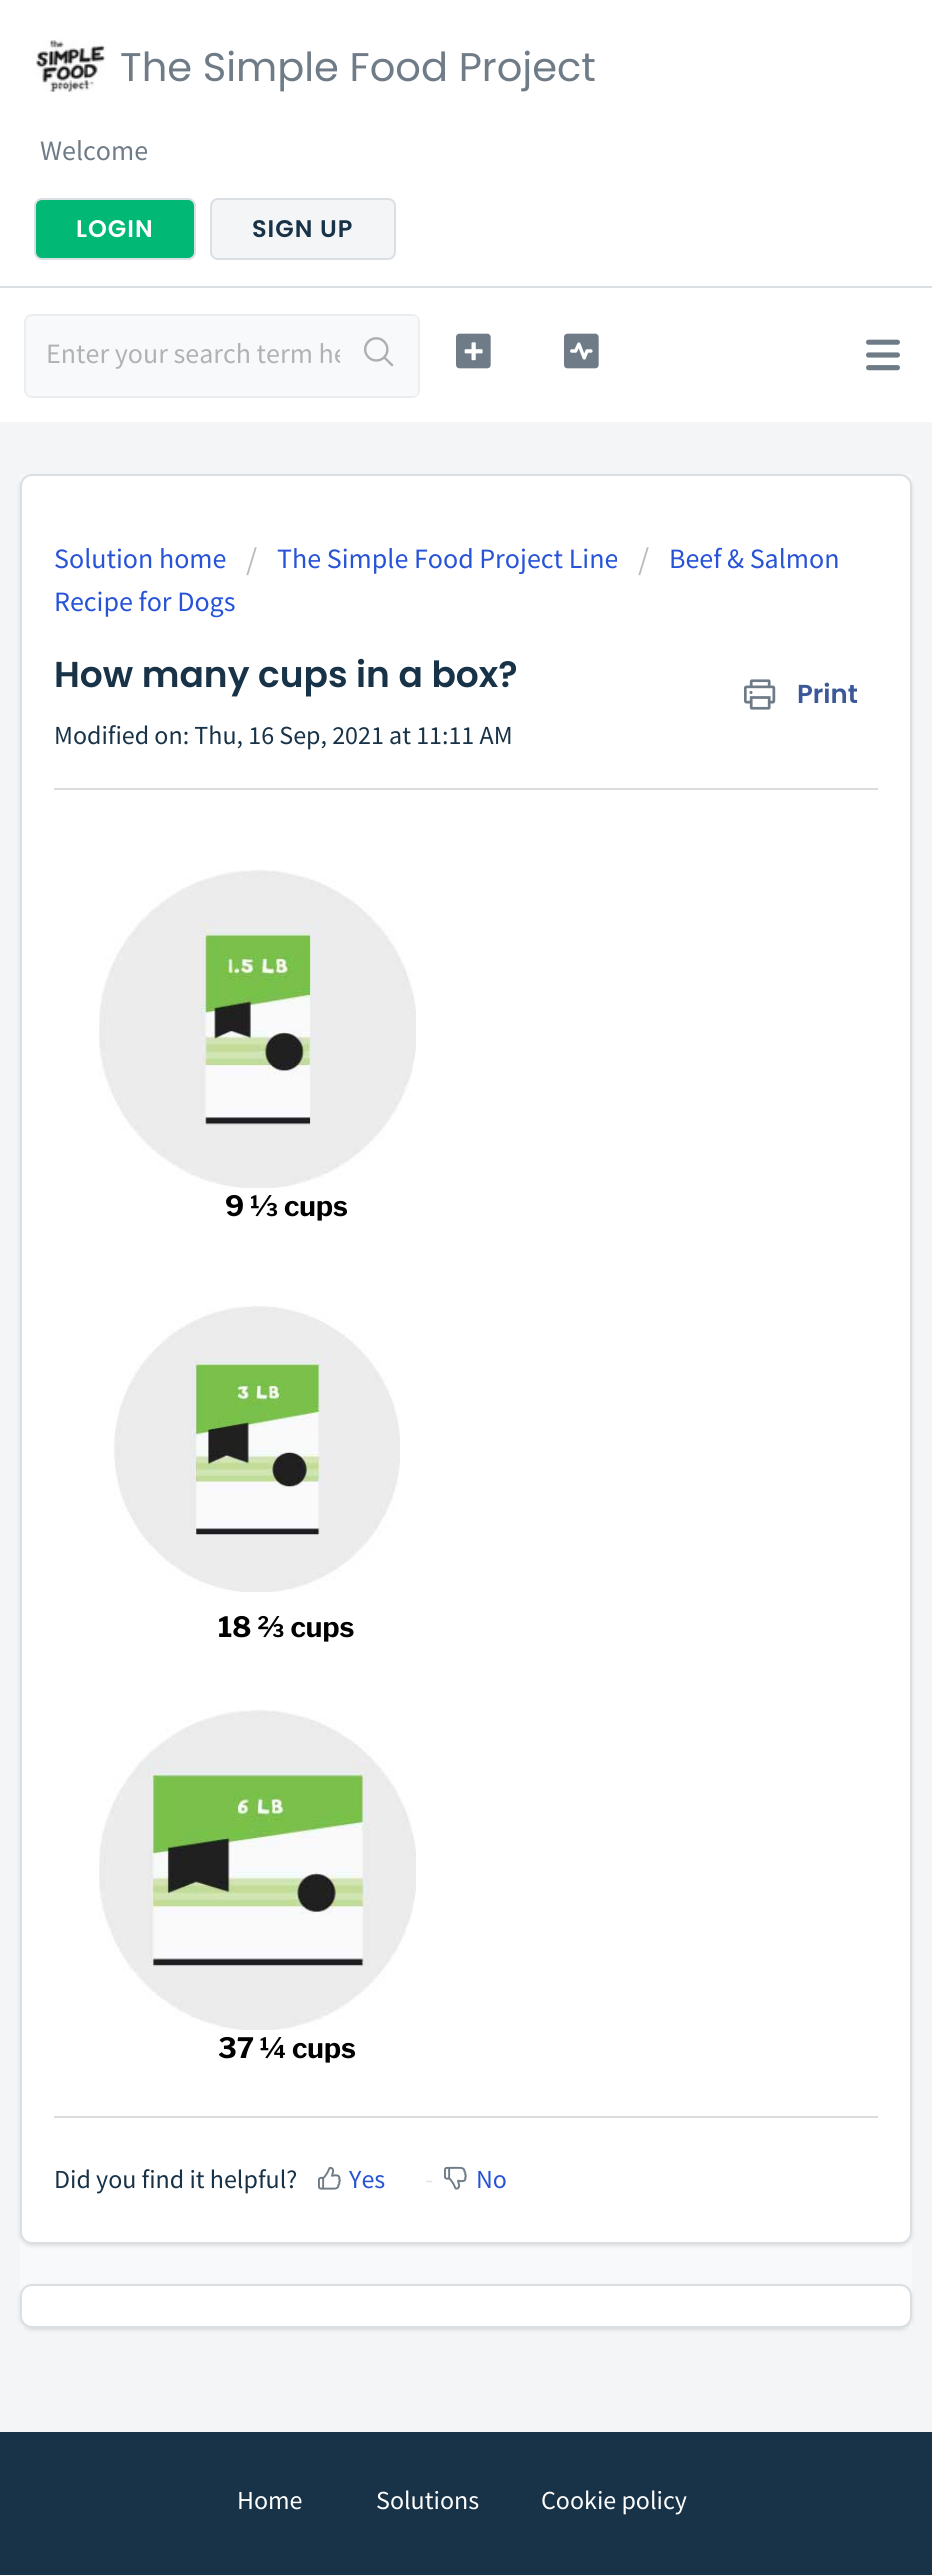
import math
import cairo


def use_color(cr, r, g, b):
  cr.set_source_rgb(r / 255, g / 255, b / 255)

def text(cr, x, y, s, family, size, color, bold=False, italic=False):
  cr.select_font_face(family, cairo.FONT_SLANT_ITALIC if italic else cairo.FONT_SLANT_NORMAL, cairo.FONT_WEIGHT_BOLD if bold else cairo.FONT_WEIGHT_NORMAL)
  cr.set_font_size(size)
  use_color(cr, *color)
  cr.move_to(x, y)
  cr.show_text(s)

def spaced_text(cr, x, y, s, letter, word):
  cr.move_to(x, y)
  for ch in s:
    cr.show_text(ch)
    cr.rel_move_to(letter + word * (ch == ' '), 0)

def box(cr, x, y, w, h, *color):
  use_color(cr, *color)
  cr.rectangle(x, y, w, h)
  cr.fill()

def round_rect(cr, x, y, w, h, r):
  cr.new_sub_path()
  for i, (u, v) in enumerate([(x + w - r, y + h - r), (x + r, y + h - r), (x + r, y + r), (x + w - r, y + r)]):
    cr.arc(u, v, r, i * math.pi / 2, (i + 1) * math.pi / 2)
  cr.close_path()

def shadow(cr, x, y, w, h, r, blur, alpha):
  cr.push_group_with_content(cairo.CONTENT_ALPHA)
  cr.set_operator(cairo.OPERATOR_SOURCE)
  for i in range(15, -16, -2):
    e = blur * i / 6
    if min(w, h) + 2 * e > 0:
      cr.set_source_rgba(0, 0, 0, alpha * math.erfc((i - 1) / 8.5) / 2)
      round_rect(cr, x - e, y - e, w + 2 * e, h + 2 * e, max(0, min(r + e + blur * .6, min(w, h) / 2 + e)))
      cr.fill()
  cr.mask(cr.pop_group())

def picture(cr, path, x, y, w, h):
  cr.save()
  cr.set_source_surface(cairo.ImageSurface.create_from_png(path), x, y)
  cr.rectangle(x, y, w, h)
  cr.fill()
  cr.restore()

def draw(cr):
  use_color(cr, 243, 245, 247)
  cr.paint()
  box(cr, 0, 0, 932, 286, 255, 255, 255)
  box(cr, 0, 286, 932, 2, 218, 223, 227)
  picture(cr, "img_01.png", 32, 39, 74, 53)
  use_color(cr, 2, 184, 117)
  round_rect(cr, 35, 199, 160, 60, 7)
  cr.fill_preserve()
  use_color(cr, 218, 223, 227)
  cr.stroke()
  use_color(cr, 243, 245, 247)
  round_rect(cr, 211, 199, 184, 60, 7)
  cr.fill_preserve()
  use_color(cr, 218, 223, 227)
  cr.stroke()
  box(cr, 0, 288, 932, 134, 255, 255, 255)
  picture(cr, "img_02.png", 866, 339, 34, 32)
  use_color(cr, 248, 249, 250)
  round_rect(cr, 25, 315, 394, 82, 7)
  cr.fill_preserve()
  use_color(cr, 235, 238, 240)
  cr.stroke()
  picture(cr, "img_04.png", 456, 333, 35, 36)
  picture(cr, "img_05.png", 564, 333, 35, 36)
  box(cr, 20, 474, 892, 1854, 248, 249, 250)
  use_color(cr, 63, 63, 68)
  shadow(cr, 20, 476, 892, 1770, 12, 2, 0.15)
  use_color(cr, 255, 255, 255)
  round_rect(cr, 21, 475, 890, 1768, 11)
  cr.fill_preserve()
  use_color(cr, 218, 223, 227)
  cr.stroke()
  picture(cr, "img_06.png", 744, 679, 32, 31)
  box(cr, 54, 788, 824, 2, 220, 220, 220)
  picture(cr, "img_07.png", 99, 870, 317, 318)
  picture(cr, "img_08.png", 114, 1306, 286, 286)
  picture(cr, "img_09.png", 99, 1710, 317, 320)
  box(cr, 54, 2116, 824, 2, 220, 220, 220)
  picture(cr, "img_10.png", 318, 2166, 23, 24)
  picture(cr, "img_11.png", 444, 2166, 23, 24)
  use_color(cr, 63, 63, 68)
  shadow(cr, 20, 2286, 892, 44, 12, 2, 0.15)
  use_color(cr, 255, 255, 255)
  round_rect(cr, 21, 2285, 890, 42, 11)
  cr.fill_preserve()
  use_color(cr, 218, 223, 227)
  cr.stroke()
  box(cr, 0, 2432, 932, 143, 24, 50, 71)
  text(cr, 120, 81, "The Simple Food Project", "Poppins", 40, (111, 124, 135))
  text(cr, 40, 160, "Welcome", "Source Sans Pro", 28, (111, 124, 135))
  cr.select_font_face("Poppins SemiBold")
  cr.set_font_size(24)
  use_color(cr, 255, 255, 255)
  spaced_text(cr, 76, 237, "LOGIN", 1, 0)
  use_color(cr, 24, 50, 71)
  spaced_text(cr, 252, 237, "SIGN UP", 1, 0)
  text(cr, 46, 363, "Enter your search term he", "Source Sans Pro", 28, (178, 178, 178))
  use_color(cr, 248, 249, 250)
  round_rect(cr, 340, 316, 78, 80, 4)
  cr.fill()
  picture(cr, "img_03.png", 364, 337, 30, 30)
  text(cr, 54, 568, "Solution home", "Source Sans Pro", 28, (39, 83, 215))
  text(cr, 246, 570, "/", "Source Sans Pro", 32, (187, 187, 187))
  text(cr, 277, 568, "The Simple Food Project Line", "Source Sans Pro", 28, (39, 83, 215))
  text(cr, 638, 570, "/", "Source Sans Pro", 32, (187, 187, 187))
  text(cr, 669, 568, "Beef & Salmon", "Source Sans Pro", 28, (39, 83, 215))
  text(cr, 54, 611, "Recipe for Dogs", "Source Sans Pro", 28, (39, 83, 215))
  text(cr, 54, 687, "How many cups in a box?", "Poppins SemiBold", 36, (24, 50, 71))
  text(cr, 797, 703, "Print", "Poppins SemiBold", 26, (59, 89, 152))
  text(cr, 54, 744, "Modified on: Thu, 16 Sep, 2021 at 11:11 AM", "Source Sans Pro", 26, (24, 50, 71))
  text(cr, 225, 1216, "9 ⅓ cups", "Libre Franklin", 28, (0, 0, 0), bold=True)
  text(cr, 218, 1637, "18 ⅔ cups", "Libre Franklin", 28, (0, 0, 0), bold=True)
  text(cr, 218, 2058, "37 ¼ cups", "Libre Franklin", 28, (0, 0, 0), bold=True)
  text(cr, 54, 2188, "Did you find it helpful?", "Source Sans Pro", 26, (24, 50, 71))
  text(cr, 349, 2188, "Yes", "Source Sans Pro", 26, (39, 83, 215))
  text(cr, 425, 2188, "-", "Source Sans Pro", 26, (229, 229, 229))
  text(cr, 476, 2188, "No", "Source Sans Pro", 26, (39, 83, 215))
  text(cr, 237, 2509, "Home", "Source Sans Pro", 26, (255, 255, 255))
  text(cr, 376, 2509, "Solutions", "Source Sans Pro", 26, (255, 255, 255))
  text(cr, 541, 2509, "Cookie policy", "Source Sans Pro", 26, (255, 255, 255))


surface = cairo.ImageSurface(cairo.FORMAT_RGB24, 932, 2575)
cr = cairo.Context(surface)
options = cairo.FontOptions()
options.set_hint_metrics(cairo.HINT_METRICS_OFF)
options.set_hint_style(cairo.HINT_STYLE_NONE)
cr.set_font_options(options)
cr.set_miter_limit(4)
draw(cr)
surface.write_to_png("out.png")
